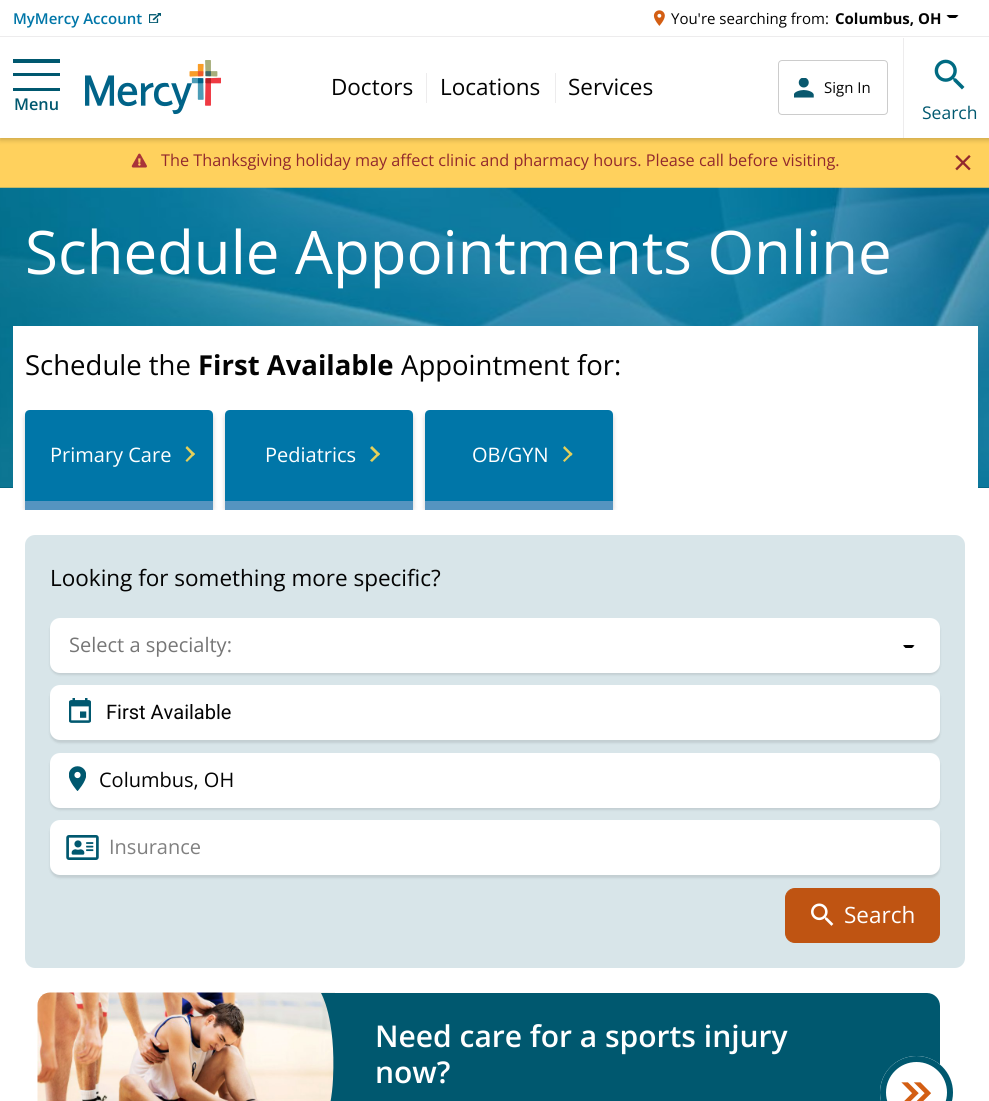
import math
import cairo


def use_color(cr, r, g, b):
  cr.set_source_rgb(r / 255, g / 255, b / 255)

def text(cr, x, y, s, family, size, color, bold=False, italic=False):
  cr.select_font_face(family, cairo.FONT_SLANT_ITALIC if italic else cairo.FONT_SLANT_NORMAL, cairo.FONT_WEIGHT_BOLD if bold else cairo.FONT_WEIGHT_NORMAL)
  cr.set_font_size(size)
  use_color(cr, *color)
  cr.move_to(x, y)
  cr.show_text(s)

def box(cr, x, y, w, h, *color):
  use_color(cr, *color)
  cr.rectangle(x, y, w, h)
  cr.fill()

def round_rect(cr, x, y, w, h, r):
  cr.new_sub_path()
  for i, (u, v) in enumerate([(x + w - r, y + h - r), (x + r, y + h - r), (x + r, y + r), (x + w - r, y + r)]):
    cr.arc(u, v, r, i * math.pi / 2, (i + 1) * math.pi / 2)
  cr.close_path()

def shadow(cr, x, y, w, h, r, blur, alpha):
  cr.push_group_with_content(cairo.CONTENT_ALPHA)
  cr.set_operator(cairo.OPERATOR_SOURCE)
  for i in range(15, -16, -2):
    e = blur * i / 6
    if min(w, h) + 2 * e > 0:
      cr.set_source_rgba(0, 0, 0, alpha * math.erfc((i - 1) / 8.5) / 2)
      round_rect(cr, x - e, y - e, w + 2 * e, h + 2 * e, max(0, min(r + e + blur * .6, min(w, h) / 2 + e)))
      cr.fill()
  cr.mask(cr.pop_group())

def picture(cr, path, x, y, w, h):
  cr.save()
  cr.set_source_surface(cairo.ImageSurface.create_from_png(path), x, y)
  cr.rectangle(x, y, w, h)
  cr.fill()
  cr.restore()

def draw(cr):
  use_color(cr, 255, 255, 255)
  cr.paint()
  box(cr, 0, 138, 989, 50, 255, 209, 93)
  use_color(cr, 3, 3, 3)
  shadow(cr, 0, 3, 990, 137, 0, 2.5, 0.2)
  box(cr, 0, 0, 989, 138, 255, 255, 255)
  box(cr, 0, 36, 989, 1, 237, 236, 237)
  picture(cr, "img_01.png", 149, 13, 12, 10)
  picture(cr, "img_02.png", 653, 10, 12, 16)
  use_color(cr, 0, 0, 0)
  cr.new_path()
  cr.move_to(948, 15)
  cr.line_to(946.5, 15.5)
  cr.line_to(949.5, 18)
  cr.line_to(955.5, 18)
  cr.line_to(958.5, 15.5)
  cr.line_to(957, 15)
  cr.close_path()
  cr.fill()
  cr.save()
  cr.rectangle(13, 59, 47, 34)
  cr.clip()
  use_color(cr, 0, 88, 111)
  cr.new_path()
  cr.move_to(60, 59)
  cr.line_to(60, 63)
  cr.line_to(12, 63)
  cr.line_to(12, 59)
  cr.close_path()
  cr.move_to(60, 73)
  cr.line_to(60, 76)
  cr.line_to(12, 76)
  cr.line_to(12, 73)
  cr.close_path()
  cr.move_to(60, 88)
  cr.line_to(60, 91)
  cr.line_to(12, 91)
  cr.line_to(12, 88)
  cr.close_path()
  cr.fill()
  cr.restore()
  picture(cr, "img_03.png", 85, 60, 136, 55)
  box(cr, 426, 73, 1, 30, 237, 236, 237)
  box(cr, 555, 73, 1, 30, 237, 236, 237)
  round_rect(cr, 778.5, 60.5, 109, 54, 3.5)
  use_color(cr, 204, 204, 204)
  cr.set_line_width(1)
  cr.stroke()
  picture(cr, "img_04.png", 794, 78, 20, 20)
  box(cr, 903, 38, 1, 100, 237, 236, 237)
  picture(cr, "img_05.png", 934, 59, 31, 31)
  picture(cr, "img_06.png", 131, 153, 16, 15)
  box(cr, 0, 487, 989, 1, 0, 88, 111)
  picture(cr, "img_07.png", 0, 187, 989, 301)
  box(cr, 13, 326, 965, 162, 255, 255, 255)
  cr.save()
  cr.rectangle(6, 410, 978, 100)
  cr.clip()
  use_color(cr, 3, 3, 3)
  shadow(cr, 25, 413, 188, 100, 5, 2.5, 0.2)
  cr.restore()
  use_color(cr, 0, 118, 168)
  cr.new_path()
  cr.move_to(30, 410)
  cr.line_to(208, 410)
  cr.curve_to(211, 410, 213, 412, 213, 415)
  cr.line_to(213, 510)
  cr.line_to(25, 510)
  cr.line_to(25, 415)
  cr.curve_to(25, 412, 27, 410, 30, 410)
  cr.close_path()
  cr.fill()
  box(cr, 25, 501, 188, 9, 85, 148, 192)
  use_color(cr, 229, 208, 90)
  cr.new_path()
  cr.move_to(187, 446)
  cr.line_to(195, 454)
  cr.line_to(193, 456)
  cr.line_to(185.5, 448)
  cr.close_path()
  cr.fill()
  cr.new_path()
  cr.move_to(193, 452.5)
  cr.line_to(195, 454)
  cr.line_to(187, 462)
  cr.line_to(185.5, 460.5)
  cr.close_path()
  cr.fill()
  cr.save()
  cr.rectangle(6, 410, 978, 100)
  cr.clip()
  use_color(cr, 3, 3, 3)
  shadow(cr, 225, 413, 188, 100, 5, 2.5, 0.2)
  cr.restore()
  use_color(cr, 0, 118, 168)
  cr.new_path()
  cr.move_to(230, 410)
  cr.line_to(408, 410)
  cr.curve_to(411, 410, 413, 412, 413, 415)
  cr.line_to(413, 510)
  cr.line_to(225, 510)
  cr.line_to(225, 415)
  cr.curve_to(225, 412, 227, 410, 230, 410)
  cr.close_path()
  cr.fill()
  box(cr, 225, 501, 188, 9, 85, 148, 192)
  use_color(cr, 229, 208, 90)
  cr.new_path()
  cr.move_to(372, 446)
  cr.line_to(380, 454)
  cr.line_to(378, 456)
  cr.line_to(370, 448)
  cr.close_path()
  cr.fill()
  cr.new_path()
  cr.move_to(378, 452.5)
  cr.line_to(380, 454)
  cr.line_to(372, 462)
  cr.line_to(370, 460.5)
  cr.close_path()
  cr.fill()
  cr.save()
  cr.rectangle(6, 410, 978, 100)
  cr.clip()
  use_color(cr, 3, 3, 3)
  shadow(cr, 425, 413, 188, 100, 5, 2.5, 0.2)
  cr.restore()
  use_color(cr, 0, 118, 168)
  cr.new_path()
  cr.move_to(430, 410)
  cr.line_to(608, 410)
  cr.curve_to(611, 410, 613, 412, 613, 415)
  cr.line_to(613, 510)
  cr.line_to(425, 510)
  cr.line_to(425, 415)
  cr.curve_to(425, 412, 427, 410, 430, 410)
  cr.close_path()
  cr.fill()
  box(cr, 425, 501, 188, 9, 85, 148, 192)
  use_color(cr, 229, 208, 90)
  cr.new_path()
  cr.move_to(564.5, 446)
  cr.line_to(572.5, 454)
  cr.line_to(571, 456)
  cr.line_to(563, 448)
  cr.close_path()
  cr.fill()
  cr.new_path()
  cr.move_to(571, 452.5)
  cr.line_to(572.5, 454)
  cr.line_to(564.5, 462)
  cr.line_to(563, 460.5)
  cr.close_path()
  cr.fill()
  use_color(cr, 216, 229, 233)
  round_rect(cr, 25, 535, 940, 433, 10)
  cr.fill()
  use_color(cr, 0, 0, 0)
  shadow(cr, 50, 620, 890, 55, 10, 1, 0.1)
  use_color(cr, 255, 255, 255)
  round_rect(cr, 50, 618, 890, 55, 10)
  cr.fill()
  use_color(cr, 0, 0, 0)
  cr.new_path()
  cr.move_to(904.5, 645)
  cr.line_to(903, 645.5)
  cr.line_to(905.5, 648)
  cr.line_to(912, 648)
  cr.line_to(914.5, 645.5)
  cr.line_to(913, 645)
  cr.close_path()
  cr.fill()
  use_color(cr, 0, 0, 0)
  shadow(cr, 50, 688, 890, 55, 10, 1, 0.1)
  use_color(cr, 255, 255, 255)
  round_rect(cr, 50, 685, 890, 55, 10)
  cr.fill()
  picture(cr, "img_08.png", 69, 698, 22, 25)
  use_color(cr, 0, 0, 0)
  shadow(cr, 50, 755, 890, 55, 10, 1, 0.1)
  use_color(cr, 255, 255, 255)
  round_rect(cr, 50, 753, 890, 55, 10)
  cr.fill()
  picture(cr, "img_09.png", 69, 766, 17, 25)
  use_color(cr, 0, 0, 0)
  shadow(cr, 50, 823, 890, 55, 10, 1, 0.1)
  use_color(cr, 255, 255, 255)
  round_rect(cr, 50, 820, 890, 55, 10)
  cr.fill()
  picture(cr, "img_10.png", 66, 835, 33, 25)
  use_color(cr, 191, 84, 18)
  round_rect(cr, 785.5, 888.5, 154, 54, 9.5)
  cr.fill_preserve()
  cr.stroke()
  picture(cr, "img_11.png", 811, 903, 23, 23)
  use_color(cr, 0, 88, 111)
  round_rect(cr, 38, 993, 902, 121, 13)
  cr.fill()
  picture(cr, "img_12.png", 37, 992, 298, 109)
  cr.new_path()
  cr.move_to(321, 993)
  cr.curve_to(321, 993, 336, 1018, 333, 1079)
  cr.curve_to(330, 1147, 288, 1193, 288, 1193)
  cr.line_to(335, 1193)
  cr.line_to(335, 993)
  cr.close_path()
  cr.fill()
  use_color(cr, 255, 255, 255)
  cr.arc(916.5, 1092.5, 36.5, 0, 2 * math.pi)
  cr.fill()
  picture(cr, "img_13.png", 901, 1082, 30, 19)
  cr.arc(916.5, 1092.5, 33.5, 0, 2 * math.pi)
  use_color(cr, 0, 88, 111)
  cr.set_line_width(6)
  cr.stroke()
  text(cr, 13, 24, "MyMercy Account", "Open Sans SemiBold", 15, (0, 118, 168))
  text(cr, 671, 24, "You're searching from:", "Open Sans", 15, (3, 3, 3))
  text(cr, 835, 24, "Columbus, OH", "Open Sans", 15, (3, 3, 3), bold=True)
  text(cr, 14, 110, "Menu", "Open Sans SemiBold", 16.25, (0, 88, 111))
  text(cr, 331, 95, "Doctors", "Open Sans", 22.5, (3, 3, 3))
  text(cr, 440, 95, "Locations", "Open Sans", 22.5, (3, 3, 3))
  text(cr, 568, 95, "Services", "Open Sans", 22.5, (3, 3, 3))
  text(cr, 824, 93, "Sign In", "Open Sans", 15, (3, 3, 3))
  text(cr, 922, 119, "Search", "Open Sans", 17.5, (0, 88, 111))
  text(cr, 161, 166, "The Thanksgiving holiday may affect clinic and pharmacy hours. Please call before visiting.", "Open Sans", 16.25, (146, 41, 45))
  text(cr, 953, 175, "×", "Open Sans", 35, (146, 41, 45))
  text(cr, 25, 274, "Schedule Appointments Online", "Open Sans", 60, (255, 255, 255))
  text(cr, 25, 375, "Schedule the", "Open Sans", 27.5, (3, 3, 3))
  text(cr, 198, 375, "First Available", "Open Sans", 27.5, (3, 3, 3), bold=True)
  text(cr, 401, 375, "Appointment for:", "Open Sans", 27.5, (3, 3, 3))
  text(cr, 50, 462, "Primary Care", "Open Sans", 20, (255, 255, 255))
  text(cr, 265, 462, "Pediatrics", "Open Sans", 20, (255, 255, 255))
  text(cr, 472, 462, "OB/GYN", "Open Sans", 20, (255, 255, 255))
  text(cr, 50, 586, "Looking for something more specific?", "Open Sans", 22.5, (3, 3, 3))
  text(cr, 69, 652, "Select a specialty:", "Open Sans", 20, (118, 118, 118))
  text(cr, 106, 719, "First Available", "Roboto", 20, (3, 3, 3))
  text(cr, 99, 787, "Columbus, OH", "Open Sans", 20, (3, 3, 3))
  text(cr, 109, 854, "Insurance", "Open Sans", 20, (128, 128, 128))
  text(cr, 844, 923, "Search", "Open Sans", 22.5, (255, 255, 255))
  text(cr, 375, 1047, "Need care for a sports injury", "Open Sans SemiBold", 30, (255, 255, 255))
  text(cr, 375, 1083, "now?", "Open Sans SemiBold", 30, (255, 255, 255))


surface = cairo.ImageSurface(cairo.FORMAT_RGB24, 989, 1101)
cr = cairo.Context(surface)
options = cairo.FontOptions()
options.set_hint_metrics(cairo.HINT_METRICS_OFF)
options.set_hint_style(cairo.HINT_STYLE_NONE)
cr.set_font_options(options)
cr.set_miter_limit(4)
draw(cr)
surface.write_to_png("out.png")
